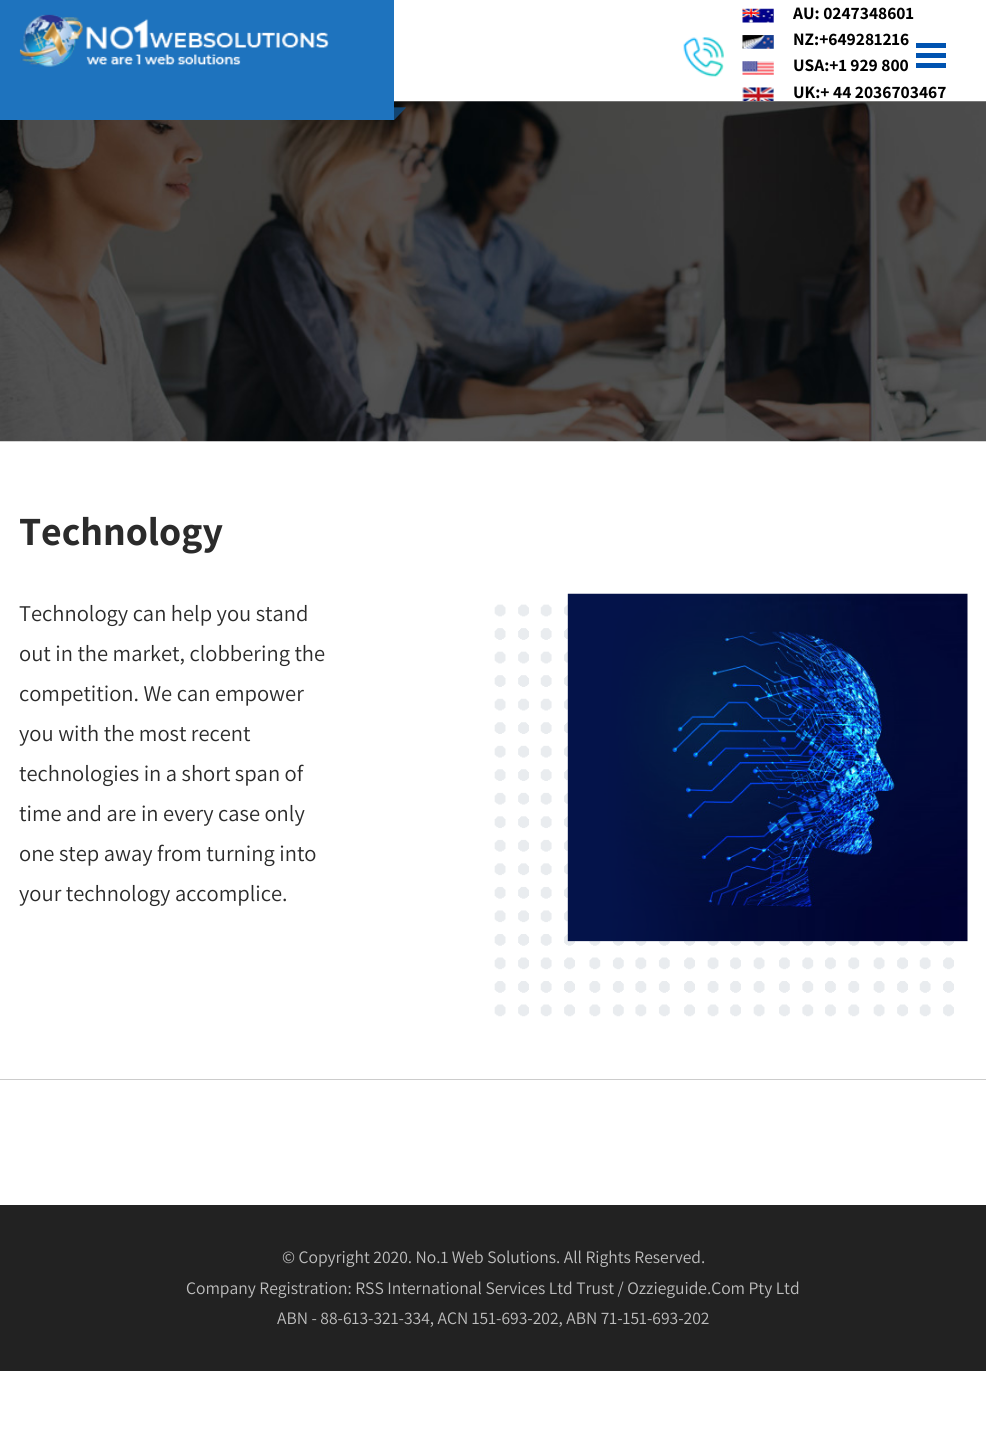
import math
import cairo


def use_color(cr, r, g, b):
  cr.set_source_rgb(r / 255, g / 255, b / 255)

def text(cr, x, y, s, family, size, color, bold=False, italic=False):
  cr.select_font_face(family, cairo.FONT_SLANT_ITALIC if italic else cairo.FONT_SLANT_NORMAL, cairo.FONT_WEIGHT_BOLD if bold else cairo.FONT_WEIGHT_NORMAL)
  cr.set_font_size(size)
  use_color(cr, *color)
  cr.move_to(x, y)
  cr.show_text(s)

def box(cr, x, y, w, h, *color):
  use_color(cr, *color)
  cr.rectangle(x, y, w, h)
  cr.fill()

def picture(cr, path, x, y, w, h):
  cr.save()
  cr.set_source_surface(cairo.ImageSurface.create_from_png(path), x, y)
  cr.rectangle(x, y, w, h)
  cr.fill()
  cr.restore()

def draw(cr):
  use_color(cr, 255, 255, 255)
  cr.paint()
  picture(cr, "img_06.png", 742, 87, 32, 15)
  picture(cr, "img_07.png", 0, 101, 986, 341)
  box(cr, 0, 0, 394, 120, 30, 115, 190)
  cr.new_path()
  cr.move_to(394, 120)
  cr.line_to(394, 107.5)
  cr.line_to(406, 107.5)
  cr.close_path()
  cr.fill()
  cr.set_source_rgba(0, 0, 0, 0.4)
  cr.new_path()
  cr.move_to(394, 120)
  cr.line_to(394, 107.5)
  cr.line_to(406, 107.5)
  cr.close_path()
  cr.fill()
  picture(cr, "img_01.png", 19, 14, 310, 53)
  picture(cr, "img_02.png", 683, 37, 41, 40)
  picture(cr, "img_03.png", 742, 8, 32, 15)
  picture(cr, "img_04.png", 742, 35, 32, 14)
  picture(cr, "img_05.png", 742, 61, 32, 14)
  box(cr, 916, 53, 30, 5, 0, 83, 176)
  box(cr, 916, 43, 30, 5, 0, 83, 176)
  box(cr, 916, 63, 30, 5, 0, 83, 176)
  picture(cr, "img_08.png", 494, 593, 474, 424)
  box(cr, 0, 1079, 986, 1, 204, 204, 204)
  box(cr, 0, 1205, 986, 166, 34, 34, 34)
  text(cr, 793, 19, "AU: 0247348601", "Assistant", 17.5, (0, 0, 0), bold=True)
  text(cr, 793, 45, "NZ:+649281216", "Assistant", 17.5, (0, 0, 0), bold=True)
  text(cr, 793, 71, "USA:+1 929 800", "Assistant", 17.5, (0, 0, 0), bold=True)
  text(cr, 793, 98, "UK:+ 44 2036703467", "Assistant", 17.5, (0, 0, 0), bold=True)
  text(cr, 19, 545, "Technology", "Assistant", 40, (43, 43, 43), bold=True)
  text(cr, 19, 621, "Technology can help you stand", "Assistant", 22.5, (43, 43, 43))
  text(cr, 19, 661, "out in the market, clobbering the", "Assistant", 22.5, (43, 43, 43))
  text(cr, 19, 701, "competition. We can empower", "Assistant", 22.5, (43, 43, 43))
  text(cr, 19, 741, "you with the most recent", "Assistant", 22.5, (43, 43, 43))
  text(cr, 19, 781, "technologies in a short span of", "Assistant", 22.5, (43, 43, 43))
  text(cr, 19, 821, "time and are in every case only", "Assistant", 22.5, (43, 43, 43))
  text(cr, 19, 861, "one step away from turning into", "Assistant", 22.5, (43, 43, 43))
  text(cr, 19, 901, "your technology accomplice.", "Assistant", 22.5, (43, 43, 43))
  text(cr, 282, 1263, "© Copyright 2020. No.1 Web Solutions. All Rights Reserved.", "Assistant", 17.5, (190, 190, 190))
  text(cr, 186, 1294, "Company Registration: RSS International Services Ltd Trust / Ozzieguide.Com Pty Ltd", "Assistant", 17.5, (190, 190, 190))
  text(cr, 277, 1324, "ABN - 88-613-321-334, ACN 151-693-202, ABN 71-151-693-202", "Assistant", 17.5, (190, 190, 190))


surface = cairo.ImageSurface(cairo.FORMAT_RGB24, 986, 1455)
cr = cairo.Context(surface)
options = cairo.FontOptions()
options.set_hint_metrics(cairo.HINT_METRICS_OFF)
options.set_hint_style(cairo.HINT_STYLE_NONE)
cr.set_font_options(options)
cr.set_miter_limit(4)
draw(cr)
surface.write_to_png("out.png")
